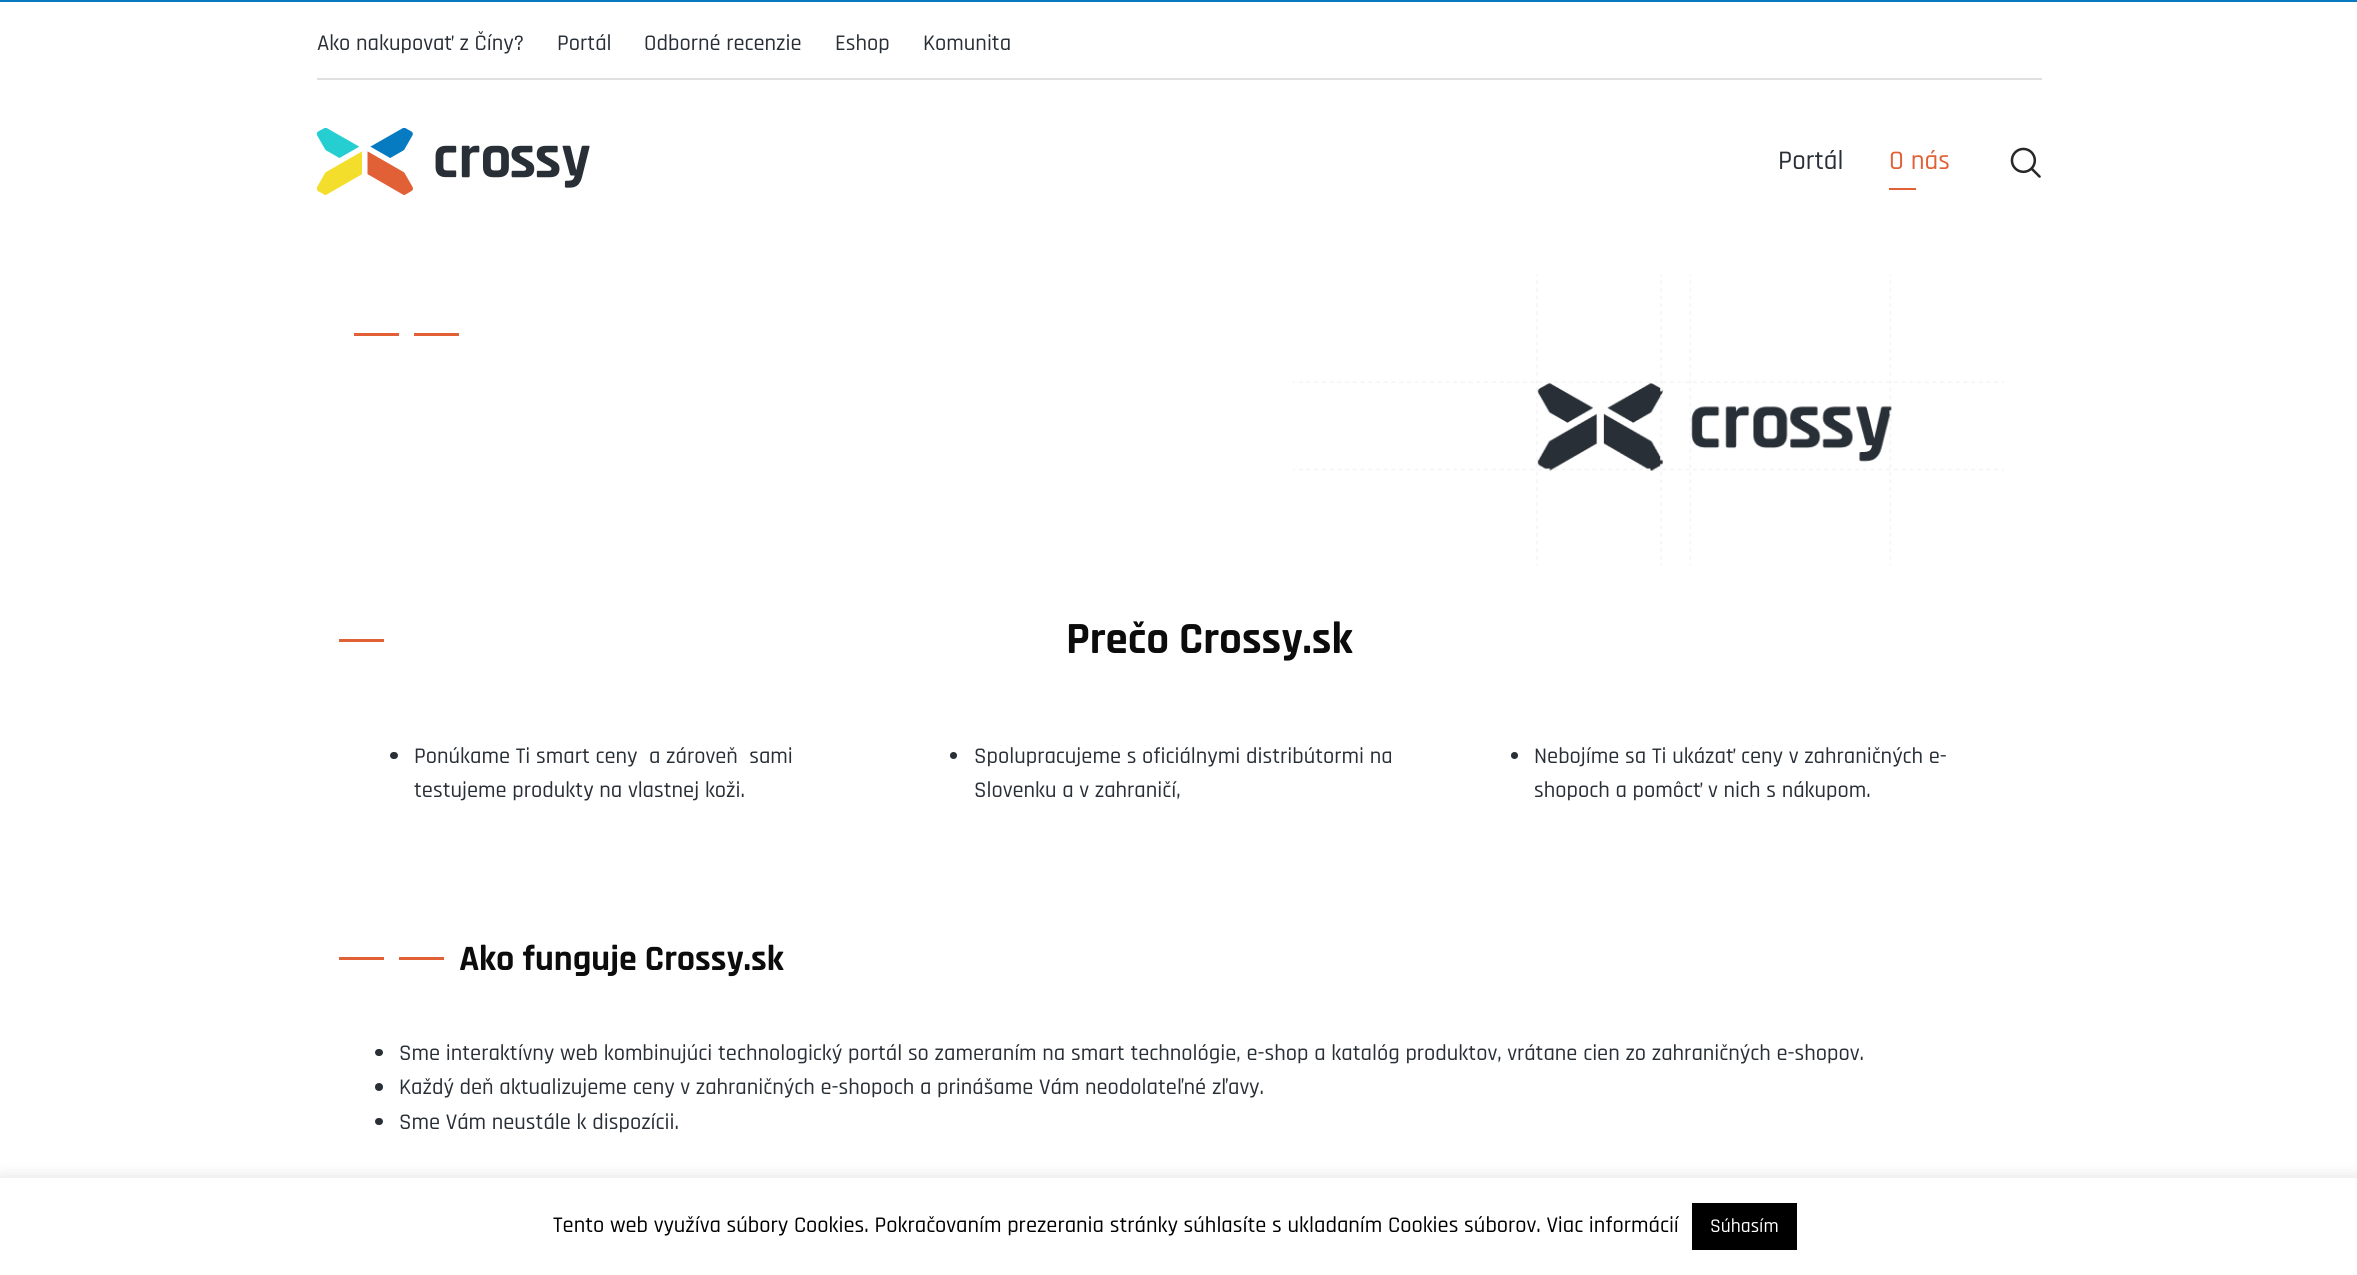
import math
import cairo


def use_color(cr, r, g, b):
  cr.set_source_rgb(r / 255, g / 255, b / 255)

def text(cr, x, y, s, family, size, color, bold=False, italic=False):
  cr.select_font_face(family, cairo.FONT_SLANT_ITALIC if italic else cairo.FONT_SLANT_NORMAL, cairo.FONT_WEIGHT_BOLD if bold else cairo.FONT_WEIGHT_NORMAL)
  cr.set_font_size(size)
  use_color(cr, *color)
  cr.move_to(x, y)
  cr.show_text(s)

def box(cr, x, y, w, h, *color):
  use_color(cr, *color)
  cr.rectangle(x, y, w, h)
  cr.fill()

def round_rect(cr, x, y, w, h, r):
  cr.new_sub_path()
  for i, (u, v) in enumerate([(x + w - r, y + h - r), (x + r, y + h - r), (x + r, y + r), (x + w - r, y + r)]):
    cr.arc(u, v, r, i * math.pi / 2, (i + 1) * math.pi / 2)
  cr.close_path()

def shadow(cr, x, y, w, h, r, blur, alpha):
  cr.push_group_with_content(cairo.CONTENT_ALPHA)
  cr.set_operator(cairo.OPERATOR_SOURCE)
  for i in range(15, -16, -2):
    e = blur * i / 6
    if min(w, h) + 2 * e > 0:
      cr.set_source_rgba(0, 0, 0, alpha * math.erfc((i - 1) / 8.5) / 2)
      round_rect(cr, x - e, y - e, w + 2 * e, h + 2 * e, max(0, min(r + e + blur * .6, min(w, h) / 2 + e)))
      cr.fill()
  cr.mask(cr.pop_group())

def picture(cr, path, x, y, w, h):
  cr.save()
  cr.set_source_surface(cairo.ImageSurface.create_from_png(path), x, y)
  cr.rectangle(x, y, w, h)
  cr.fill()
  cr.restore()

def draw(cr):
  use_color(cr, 255, 255, 255)
  cr.paint()
  box(cr, 0, 0, 2357, 2, 6, 123, 194)
  box(cr, 317, 78, 1725, 2, 224, 224, 224)
  picture(cr, "img_01.png", 317, 128, 273, 67)
  box(cr, 1889, 188, 27, 2, 225, 96, 54)
  picture(cr, "img_02.png", 2010, 147, 31, 31)
  box(cr, 354, 333, 45, 3, 225, 96, 54)
  box(cr, 414, 333, 45, 3, 225, 96, 54)
  picture(cr, "img_03.png", 1293, 274, 711, 292)
  box(cr, 339, 639, 45, 3, 225, 96, 54)
  use_color(cr, 41, 47, 54)
  round_rect(cr, 390, 752, 8, 7, 3.5)
  cr.fill()
  cr.arc(953.5, 755.5, 3.5, 0, 2 * math.pi)
  cr.fill()
  cr.arc(1514.5, 755.5, 3.5, 0, 2 * math.pi)
  cr.fill()
  box(cr, 339, 957, 45, 3, 225, 96, 54)
  box(cr, 399, 957, 45, 3, 225, 96, 54)
  use_color(cr, 41, 47, 54)
  round_rect(cr, 375, 1049, 8, 7, 3.5)
  cr.fill()
  cr.arc(379, 1087, 4, 0, 2 * math.pi)
  cr.fill()
  round_rect(cr, 375, 1118, 8, 7, 3.5)
  cr.fill()
  use_color(cr, 172, 171, 171)
  shadow(cr, 0, 1176, 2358, 98, 0, 7.5, 0.3)
  box(cr, 0, 1178, 2357, 97, 255, 255, 255)
  box(cr, 1692, 1203, 105, 47, 0, 0, 0)
  text(cr, 317, 50, "Ako nakupovať z Číny?", "Rajdhani Medium", 22.5, (41, 47, 54))
  text(cr, 557, 50, "Portál", "Rajdhani Medium", 22.5, (41, 47, 54))
  text(cr, 644, 50, "Odborné recenzie", "Rajdhani Medium", 22.5, (41, 47, 54))
  text(cr, 835, 50, "Eshop", "Rajdhani Medium", 22.5, (41, 47, 54))
  text(cr, 923, 50, "Komunita", "Rajdhani Medium", 22.5, (41, 47, 54))
  text(cr, 1778, 169, "Portál", "Rajdhani Medium", 27, (41, 47, 54))
  text(cr, 1889, 169, "O nás", "Rajdhani Medium", 27, (225, 96, 54))
  text(cr, 1066, 653, "Prečo Crossy.sk", "Rajdhani", 45, (12, 12, 12), bold=True)
  text(cr, 414, 763, "Ponúkame Ti smart ceny", "Rajdhani Medium", 22.5, (41, 47, 54))
  text(cr, 649, 763, "a zároveň  sami", "Rajdhani Medium", 22.5, (41, 47, 54))
  text(cr, 414, 797, "testujeme produkty na vlastnej koži.", "Rajdhani Medium", 22.5, (41, 47, 54))
  text(cr, 974, 763, "Spolupracujeme s oficiálnymi distribútormi na", "Rajdhani Medium", 22.5, (41, 47, 54))
  text(cr, 974, 797, "Slovenku a v zahraničí,", "Rajdhani Medium", 22.5, (41, 47, 54))
  text(cr, 1534, 763, "Nebojíme sa Ti ukázať ceny v zahraničných e-", "Rajdhani Medium", 22.5, (41, 47, 54))
  text(cr, 1534, 797, "shopoch a pomôcť v nich s nákupom.", "Rajdhani Medium", 22.5, (41, 47, 54))
  text(cr, 459, 970, "Ako funguje Crossy.sk", "Rajdhani", 36, (12, 12, 12), bold=True)
  text(cr, 399, 1060, "Sme interaktívny web kombinujúci technologický portál so zameraním na smart technológie, e-shop a katalóg produktov, vrátane cien zo zahraničných e-shopov.", "Rajdhani Medium", 22.5, (41, 47, 54))
  text(cr, 399, 1094, "Každý deň aktualizujeme ceny v zahraničných e-shopoch a prinášame Vám neodolateľné zľavy.", "Rajdhani Medium", 22.5, (41, 47, 54))
  text(cr, 399, 1129, "Sme Vám neustále k dispozícii.", "Rajdhani Medium", 22.5, (41, 47, 54))
  text(cr, 553, 1232, "Tento web využíva súbory Cookies. Pokračovaním prezerania stránky súhlasíte s ukladaním Cookies súborov. Viac informácií", "Rajdhani Medium", 22.5, (0, 0, 0))
  text(cr, 1710, 1232, "Súhasím", "Rajdhani Medium", 19.5, (255, 255, 255))


surface = cairo.ImageSurface(cairo.FORMAT_RGB24, 2357, 1275)
cr = cairo.Context(surface)
options = cairo.FontOptions()
options.set_hint_metrics(cairo.HINT_METRICS_OFF)
options.set_hint_style(cairo.HINT_STYLE_NONE)
cr.set_font_options(options)
cr.set_miter_limit(4)
draw(cr)
surface.write_to_png("out.png")
